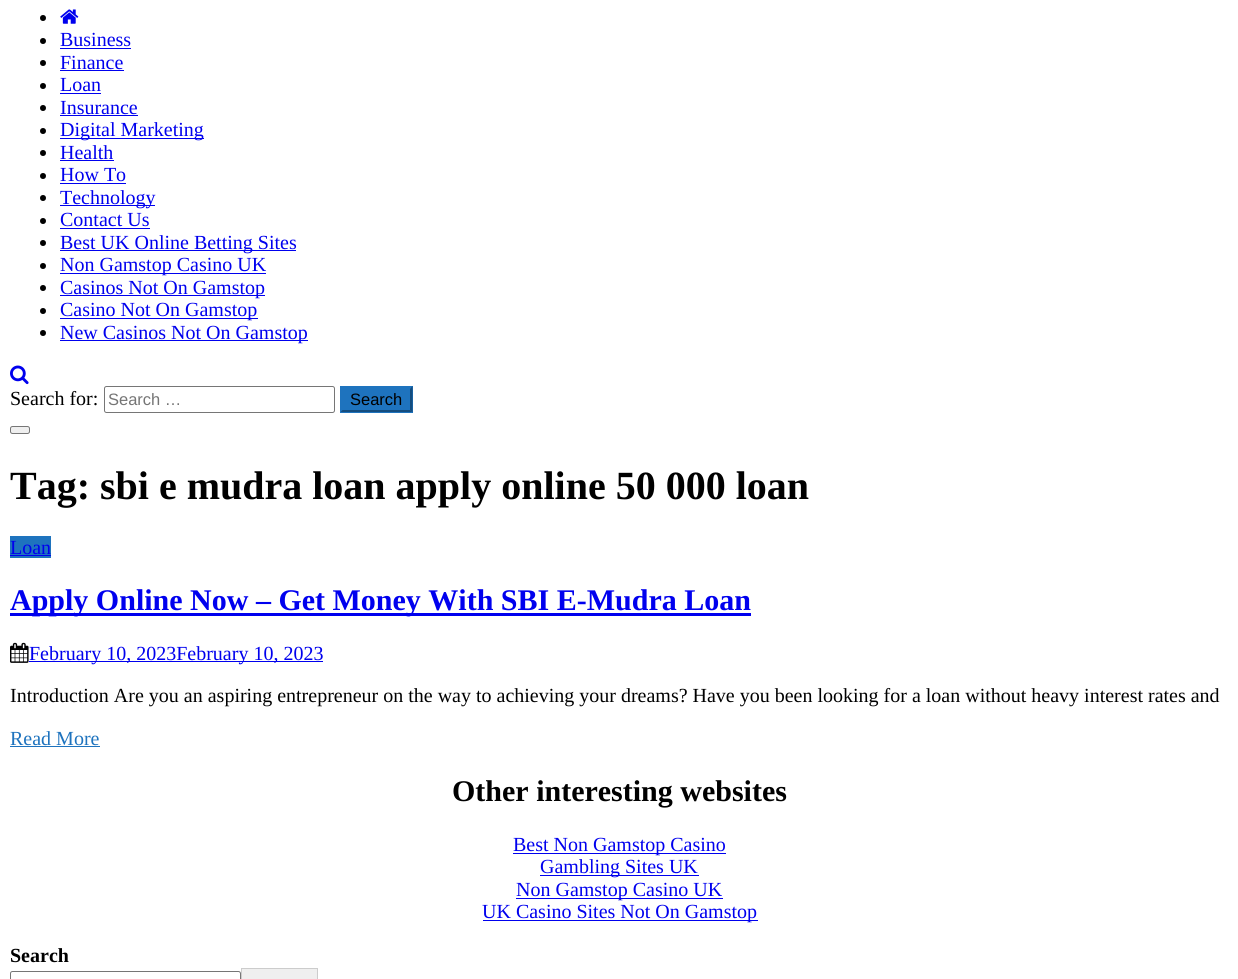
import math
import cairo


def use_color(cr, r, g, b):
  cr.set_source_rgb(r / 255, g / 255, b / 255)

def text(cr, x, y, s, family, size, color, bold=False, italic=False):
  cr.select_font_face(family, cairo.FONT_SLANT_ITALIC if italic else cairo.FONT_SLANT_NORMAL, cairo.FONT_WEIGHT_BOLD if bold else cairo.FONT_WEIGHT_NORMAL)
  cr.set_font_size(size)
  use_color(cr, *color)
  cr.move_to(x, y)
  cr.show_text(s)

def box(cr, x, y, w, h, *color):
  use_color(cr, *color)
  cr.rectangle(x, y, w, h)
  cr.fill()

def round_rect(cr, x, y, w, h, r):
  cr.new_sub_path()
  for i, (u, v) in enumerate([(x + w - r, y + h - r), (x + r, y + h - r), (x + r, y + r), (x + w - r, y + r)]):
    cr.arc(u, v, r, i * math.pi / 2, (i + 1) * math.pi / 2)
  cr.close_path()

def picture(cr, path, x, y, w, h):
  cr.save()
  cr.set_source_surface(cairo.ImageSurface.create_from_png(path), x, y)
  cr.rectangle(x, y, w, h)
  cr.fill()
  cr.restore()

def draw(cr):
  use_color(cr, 255, 255, 255)
  cr.paint()
  use_color(cr, 0, 0, 0)
  cr.arc(43, 18, 3, 0, 2 * math.pi)
  cr.fill()
  picture(cr, "img_01.png", 60, 9, 19, 15)
  cr.arc(43, 41, 3, 0, 2 * math.pi)
  cr.fill()
  box(cr, 60, 48, 71, 1, 0, 0, 238)
  use_color(cr, 0, 0, 0)
  cr.arc(43, 63, 3, 0, 2 * math.pi)
  cr.fill()
  box(cr, 60, 70, 64, 1, 0, 0, 238)
  use_color(cr, 0, 0, 0)
  cr.arc(43, 86, 3, 0, 2 * math.pi)
  cr.fill()
  box(cr, 60, 93, 41, 1, 0, 0, 238)
  use_color(cr, 0, 0, 0)
  cr.arc(43, 108, 3, 0, 2 * math.pi)
  cr.fill()
  box(cr, 60, 115, 78, 1, 0, 0, 238)
  use_color(cr, 0, 0, 0)
  cr.arc(43, 131, 3, 0, 2 * math.pi)
  cr.fill()
  box(cr, 60, 138, 144, 1, 0, 0, 238)
  use_color(cr, 0, 0, 0)
  cr.arc(43, 153, 3, 0, 2 * math.pi)
  cr.fill()
  box(cr, 60, 160, 54, 1, 0, 0, 238)
  use_color(cr, 0, 0, 0)
  cr.arc(43, 176, 3, 0, 2 * math.pi)
  cr.fill()
  box(cr, 60, 183, 66, 1, 0, 0, 238)
  use_color(cr, 0, 0, 0)
  cr.arc(43, 198, 3, 0, 2 * math.pi)
  cr.fill()
  box(cr, 60, 205, 95, 1, 0, 0, 238)
  use_color(cr, 0, 0, 0)
  cr.arc(43, 221, 3, 0, 2 * math.pi)
  cr.fill()
  box(cr, 60, 228, 90, 1, 0, 0, 238)
  use_color(cr, 0, 0, 0)
  cr.arc(43, 243, 3, 0, 2 * math.pi)
  cr.fill()
  box(cr, 60, 250, 236, 1, 0, 0, 238)
  use_color(cr, 0, 0, 0)
  cr.arc(43, 266, 3, 0, 2 * math.pi)
  cr.fill()
  box(cr, 60, 273, 206, 1, 0, 0, 238)
  use_color(cr, 0, 0, 0)
  cr.arc(43, 288, 3, 0, 2 * math.pi)
  cr.fill()
  box(cr, 60, 295, 205, 1, 0, 0, 238)
  use_color(cr, 0, 0, 0)
  cr.arc(43, 311, 3, 0, 2 * math.pi)
  cr.fill()
  box(cr, 60, 318, 198, 1, 0, 0, 238)
  use_color(cr, 0, 0, 0)
  cr.arc(43, 333, 3, 0, 2 * math.pi)
  cr.fill()
  box(cr, 60, 340, 248, 1, 0, 0, 238)
  picture(cr, "img_02.png", 10, 365, 19, 20)
  round_rect(cr, 104.5, 386.5, 230, 26, 2)
  use_color(cr, 118, 118, 118)
  cr.set_line_width(1)
  cr.stroke()
  box(cr, 340, 386, 73, 27, 30, 115, 190)
  use_color(cr, 20, 77, 127)
  cr.new_path()
  cr.move_to(412.5, 386)
  cr.line_to(412.5, 412.5)
  cr.line_to(410, 410)
  cr.line_to(410, 389)
  cr.close_path()
  cr.fill()
  cr.new_path()
  cr.move_to(412, 412)
  cr.line_to(340, 412)
  cr.line_to(342, 410)
  cr.line_to(410, 410)
  cr.close_path()
  cr.fill()
  use_color(cr, 30, 115, 190)
  cr.new_path()
  cr.move_to(340, 412.5)
  cr.line_to(340, 386)
  cr.line_to(342.5, 389)
  cr.line_to(342.5, 410)
  cr.close_path()
  cr.fill()
  use_color(cr, 239, 239, 239)
  round_rect(cr, 10.5, 426.5, 19, 7, 2)
  cr.fill_preserve()
  use_color(cr, 118, 118, 118)
  cr.stroke()
  box(cr, 10, 536, 41, 22, 30, 115, 190)
  box(cr, 10, 555, 41, 1, 0, 0, 238)
  box(cr, 10, 613, 741, 3, 0, 0, 238)
  picture(cr, "img_03.png", 10, 642, 19, 21)
  box(cr, 29, 661, 294, 1, 0, 0, 238)
  box(cr, 10, 746, 90, 1, 30, 115, 190)
  box(cr, 513, 853, 213, 1, 0, 0, 238)
  box(cr, 540, 875, 159, 1, 0, 0, 238)
  box(cr, 516, 898, 207, 1, 0, 0, 238)
  box(cr, 483, 920, 275, 1, 0, 0, 238)
  round_rect(cr, 10.5, 971.5, 230, 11, 2)
  use_color(cr, 118, 118, 118)
  cr.stroke()
  use_color(cr, 239, 239, 239)
  cr.rectangle(241.5, 968.5, 76, 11)
  cr.fill_preserve()
  use_color(cr, 204, 204, 204)
  cr.stroke()
  text(cr, 60, 46, "Business", "Liberation Serif", 20, (0, 0, 238))
  text(cr, 60, 69, "Finance", "Liberation Serif", 20, (0, 0, 238))
  text(cr, 60, 91, "Loan", "Liberation Serif", 20, (0, 0, 238))
  text(cr, 60, 114, "Insurance", "Liberation Serif", 20, (0, 0, 238))
  text(cr, 60, 136, "Digital Marketing", "Liberation Serif", 20, (0, 0, 238))
  text(cr, 60, 159, "Health", "Liberation Serif", 20, (0, 0, 238))
  text(cr, 60, 181, "How To", "Liberation Serif", 20, (0, 0, 238))
  text(cr, 60, 204, "Technology", "Liberation Serif", 20, (0, 0, 238))
  text(cr, 60, 226, "Contact Us", "Liberation Serif", 20, (0, 0, 238))
  text(cr, 60, 249, "Best UK Online Betting Sites", "Liberation Serif", 20, (0, 0, 238))
  text(cr, 60, 271, "Non Gamstop Casino UK", "Liberation Serif", 20, (0, 0, 238))
  text(cr, 60, 294, "Casinos Not On Gamstop", "Liberation Serif", 20, (0, 0, 238))
  text(cr, 60, 316, "Casino Not On Gamstop", "Liberation Serif", 20, (0, 0, 238))
  text(cr, 60, 339, "New Casinos Not On Gamstop", "Liberation Serif", 20, (0, 0, 238))
  text(cr, 10, 405, "Search for:", "Liberation Serif", 20, (0, 0, 0))
  text(cr, 108, 405, "Search …", "Liberation Sans", 16.5, (117, 117, 117))
  text(cr, 350, 405, "Search", "Liberation Sans", 16.5, (0, 0, 0))
  text(cr, 10, 499, "Tag: sbi e mudra loan apply online 50 000 loan", "Liberation Serif", 40, (0, 0, 0), bold=True)
  text(cr, 10, 554, "Loan", "Liberation Serif", 20, (0, 0, 238))
  text(cr, 10, 610, "Apply Online Now – Get Money With SBI E-Mudra Loan", "Liberation Serif", 30, (0, 0, 238), bold=True)
  text(cr, 29, 660, "February 10, 2023February 10, 2023", "Liberation Serif", 20, (0, 0, 238))
  text(cr, 10, 702, "Introduction Are you an aspiring entrepreneur on the way to achieving your dreams? Have you been looking for a loan without heavy interest rates and", "Liberation Serif", 20, (0, 0, 0))
  text(cr, 10, 745, "Read More", "Liberation Serif", 20, (30, 115, 190))
  text(cr, 452, 801, "Other interesting websites", "Liberation Serif", 30, (0, 0, 0), bold=True)
  text(cr, 513, 851, "Best Non Gamstop Casino", "Liberation Serif", 20, (0, 0, 238))
  text(cr, 540, 873, "Gambling Sites UK", "Liberation Serif", 20, (0, 0, 238))
  text(cr, 516, 896, "Non Gamstop Casino UK", "Liberation Serif", 20, (0, 0, 238))
  text(cr, 482, 918, "UK Casino Sites Not On Gamstop", "Liberation Serif", 20, (0, 0, 238))
  text(cr, 10, 962, "Search", "Liberation Serif", 20, (0, 0, 0), bold=True)


surface = cairo.ImageSurface(cairo.FORMAT_RGB24, 1238, 979)
cr = cairo.Context(surface)
options = cairo.FontOptions()
options.set_hint_metrics(cairo.HINT_METRICS_OFF)
options.set_hint_style(cairo.HINT_STYLE_NONE)
cr.set_font_options(options)
cr.set_miter_limit(4)
draw(cr)
surface.write_to_png("out.png")
